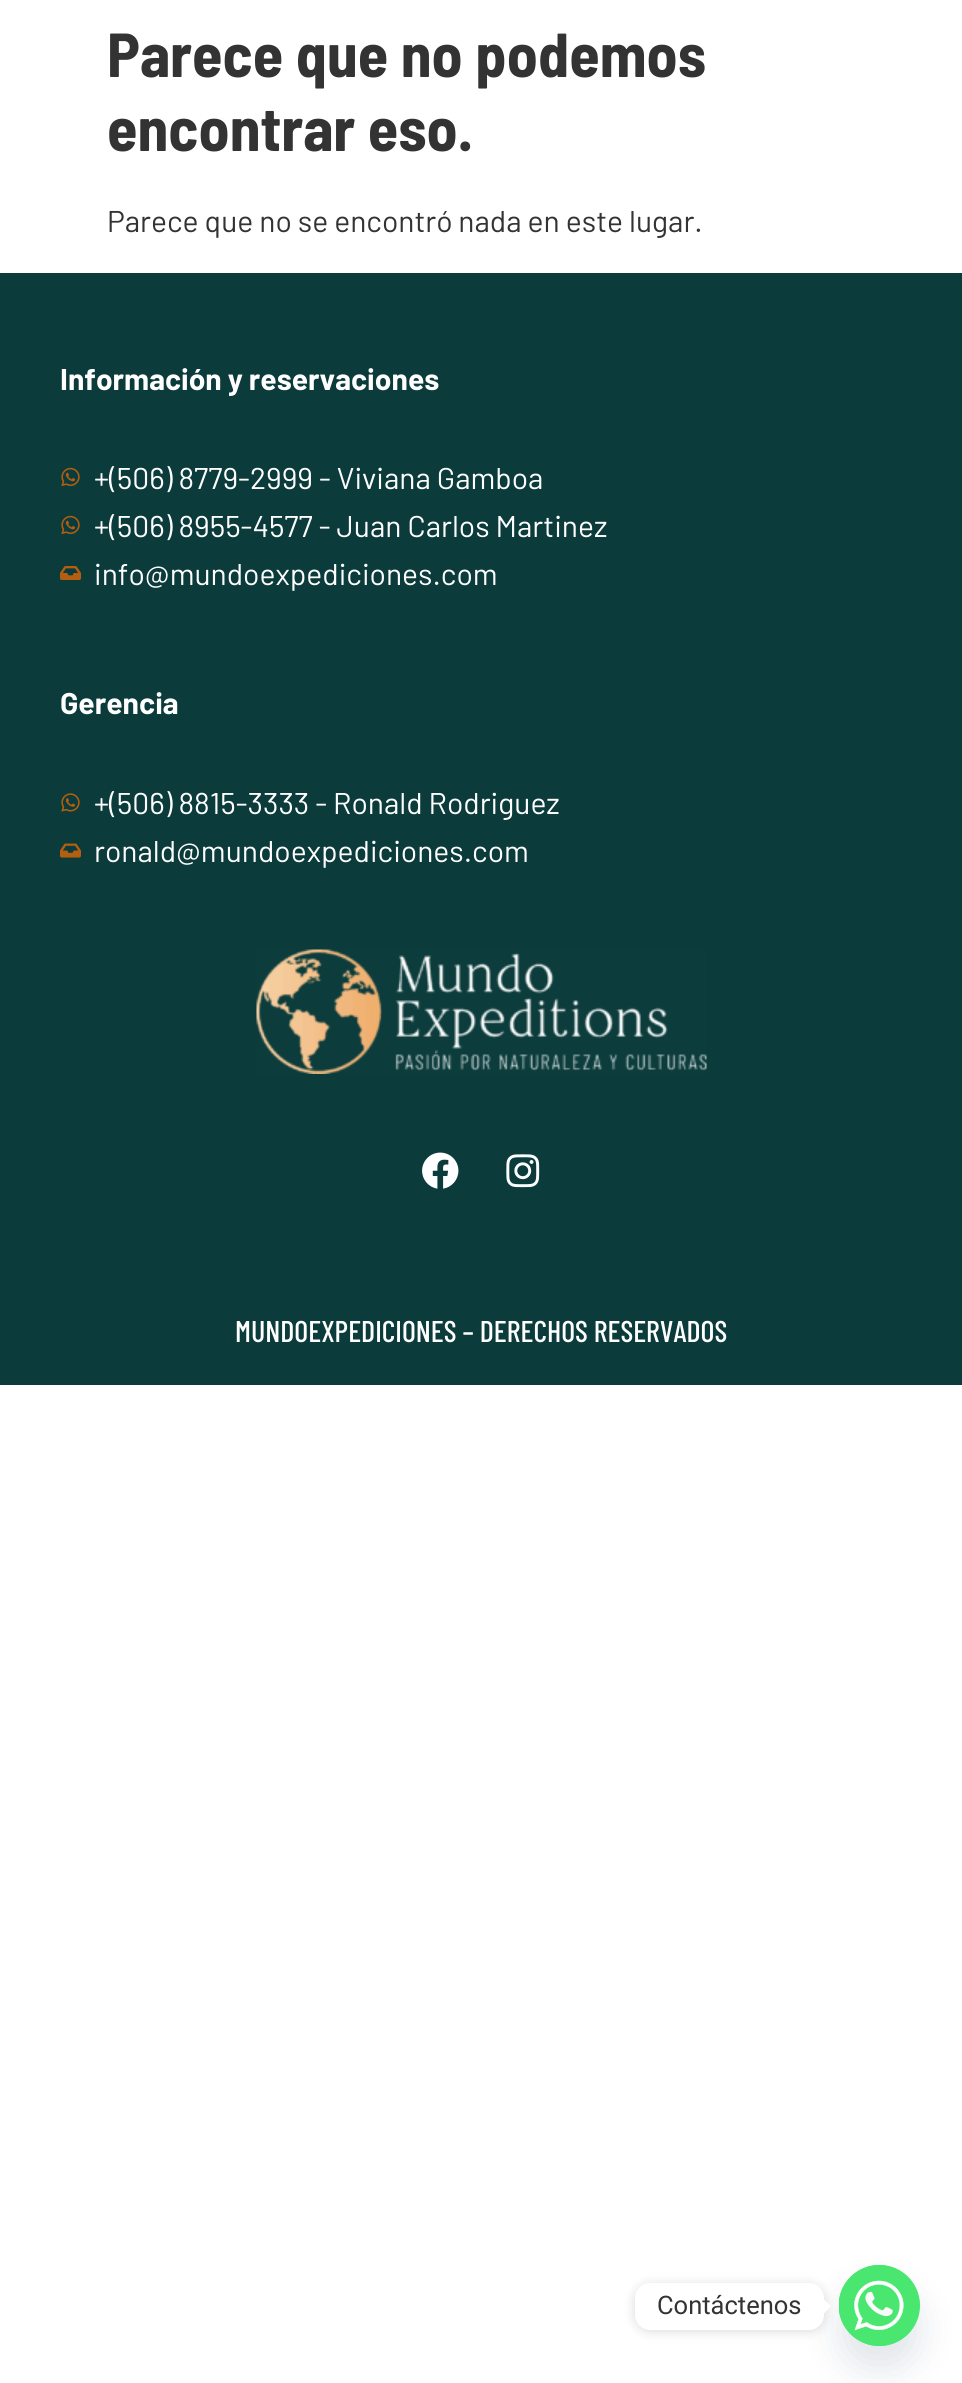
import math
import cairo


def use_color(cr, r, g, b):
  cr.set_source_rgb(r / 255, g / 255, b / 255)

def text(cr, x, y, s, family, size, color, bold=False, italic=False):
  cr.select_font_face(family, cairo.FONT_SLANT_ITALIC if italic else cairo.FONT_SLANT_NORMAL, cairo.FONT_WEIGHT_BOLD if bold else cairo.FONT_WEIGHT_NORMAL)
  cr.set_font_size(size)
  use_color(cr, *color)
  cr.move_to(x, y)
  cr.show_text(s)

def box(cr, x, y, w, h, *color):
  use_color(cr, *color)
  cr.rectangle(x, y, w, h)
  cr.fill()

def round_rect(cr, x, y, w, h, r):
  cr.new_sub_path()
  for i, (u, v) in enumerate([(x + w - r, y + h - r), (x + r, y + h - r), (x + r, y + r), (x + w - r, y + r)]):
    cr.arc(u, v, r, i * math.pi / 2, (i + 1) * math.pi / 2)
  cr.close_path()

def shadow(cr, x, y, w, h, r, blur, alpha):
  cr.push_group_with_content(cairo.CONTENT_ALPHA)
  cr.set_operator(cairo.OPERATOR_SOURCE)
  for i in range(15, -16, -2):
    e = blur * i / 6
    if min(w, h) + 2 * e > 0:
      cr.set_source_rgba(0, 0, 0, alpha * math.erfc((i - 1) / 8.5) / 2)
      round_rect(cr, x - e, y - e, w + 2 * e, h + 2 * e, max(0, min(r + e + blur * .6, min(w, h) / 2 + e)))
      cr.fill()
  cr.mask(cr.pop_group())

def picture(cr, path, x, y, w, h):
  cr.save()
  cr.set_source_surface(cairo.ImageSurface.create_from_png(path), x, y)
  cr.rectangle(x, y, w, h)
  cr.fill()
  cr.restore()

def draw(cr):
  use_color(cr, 255, 255, 255)
  cr.paint()
  box(cr, 0, 273, 962, 1112, 11, 59, 59)
  picture(cr, "img_01.png", 61, 467, 19, 20)
  picture(cr, "img_01.png", 61, 515, 19, 20)
  picture(cr, "img_02.png", 60, 566, 21, 14)
  picture(cr, "img_03.png", 61, 793, 19, 19)
  picture(cr, "img_04.png", 60, 843, 21, 15)
  picture(cr, "img_05.png", 256, 949, 451, 125)
  picture(cr, "img_06.png", 422, 1152, 37, 37)
  picture(cr, "img_07.png", 506, 1154, 34, 34)
  use_color(cr, 73, 104, 126)
  shadow(cr, 839, 2289, 81, 81, 40.5, 18, 0.16)
  use_color(cr, 73, 230, 112)
  cr.arc(879.5, 2305.5, 40.5, 0, 2 * math.pi)
  cr.fill()
  picture(cr, "img_08.png", 839, 2265, 81, 81)
  use_color(cr, 0, 0, 0)
  shadow(cr, 635, 2285, 189, 46, 15, 6, 0.15)
  use_color(cr, 255, 255, 255)
  round_rect(cr, 635, 2283, 189, 47, 15)
  cr.fill()
  cr.new_path()
  cr.move_to(823.5, 2314)
  cr.line_to(823.5, 2299)
  cr.line_to(831, 2306)
  cr.close_path()
  cr.fill()
  text(cr, 107, 77, "Parece que no podemos", "Barlow Semi Condensed", 62, (51, 51, 51), bold=True)
  text(cr, 107, 151, "encontrar eso.", "Barlow Semi Condensed", 62, (51, 51, 51), bold=True)
  text(cr, 107, 232, "Parece que no se encontró nada en este lugar.", "Barlow", 30, (51, 51, 51))
  text(cr, 60, 390, "Información y reservaciones", "Barlow", 30, (255, 255, 255), bold=True)
  text(cr, 94, 489, "+(506) 8779-2999 - Viviana Gamboa", "Barlow", 30, (255, 255, 255))
  text(cr, 94, 537, "+(506) 8955-4577 - Juan Carlos Martinez", "Barlow", 30, (255, 255, 255))
  text(cr, 94, 585, "info@mundoexpediciones.com", "Barlow", 30, (255, 255, 255))
  text(cr, 60, 714, "Gerencia", "Barlow", 30, (255, 255, 255), bold=True)
  text(cr, 94, 814, "+(506) 8815-3333 - Ronald Rodriguez", "Barlow", 30, (255, 255, 255))
  text(cr, 94, 862, "ronald@mundoexpediciones.com", "Barlow", 30, (255, 255, 255))
  text(cr, 235, 1342, "MUNDOEXPEDICIONES – DERECHOS RESERVADOS", "Barlow Condensed Medium", 30, (255, 255, 255))
  text(cr, 657, 2314, "Contáctenos", "Roboto", 25.5, (51, 51, 51))


surface = cairo.ImageSurface(cairo.FORMAT_RGB24, 962, 2383)
cr = cairo.Context(surface)
options = cairo.FontOptions()
options.set_hint_metrics(cairo.HINT_METRICS_OFF)
options.set_hint_style(cairo.HINT_STYLE_NONE)
cr.set_font_options(options)
cr.set_miter_limit(4)
draw(cr)
surface.write_to_png("out.png")
